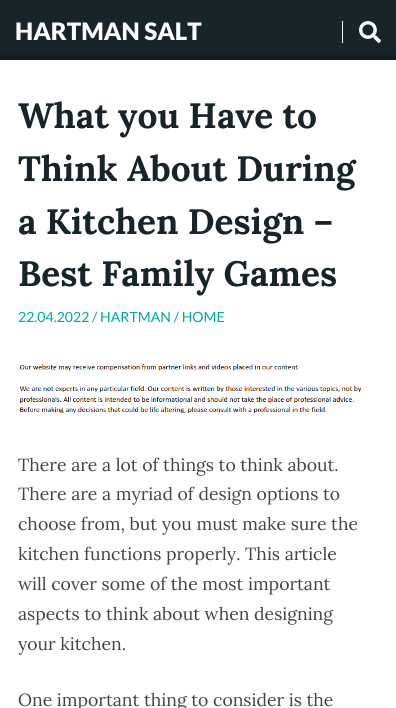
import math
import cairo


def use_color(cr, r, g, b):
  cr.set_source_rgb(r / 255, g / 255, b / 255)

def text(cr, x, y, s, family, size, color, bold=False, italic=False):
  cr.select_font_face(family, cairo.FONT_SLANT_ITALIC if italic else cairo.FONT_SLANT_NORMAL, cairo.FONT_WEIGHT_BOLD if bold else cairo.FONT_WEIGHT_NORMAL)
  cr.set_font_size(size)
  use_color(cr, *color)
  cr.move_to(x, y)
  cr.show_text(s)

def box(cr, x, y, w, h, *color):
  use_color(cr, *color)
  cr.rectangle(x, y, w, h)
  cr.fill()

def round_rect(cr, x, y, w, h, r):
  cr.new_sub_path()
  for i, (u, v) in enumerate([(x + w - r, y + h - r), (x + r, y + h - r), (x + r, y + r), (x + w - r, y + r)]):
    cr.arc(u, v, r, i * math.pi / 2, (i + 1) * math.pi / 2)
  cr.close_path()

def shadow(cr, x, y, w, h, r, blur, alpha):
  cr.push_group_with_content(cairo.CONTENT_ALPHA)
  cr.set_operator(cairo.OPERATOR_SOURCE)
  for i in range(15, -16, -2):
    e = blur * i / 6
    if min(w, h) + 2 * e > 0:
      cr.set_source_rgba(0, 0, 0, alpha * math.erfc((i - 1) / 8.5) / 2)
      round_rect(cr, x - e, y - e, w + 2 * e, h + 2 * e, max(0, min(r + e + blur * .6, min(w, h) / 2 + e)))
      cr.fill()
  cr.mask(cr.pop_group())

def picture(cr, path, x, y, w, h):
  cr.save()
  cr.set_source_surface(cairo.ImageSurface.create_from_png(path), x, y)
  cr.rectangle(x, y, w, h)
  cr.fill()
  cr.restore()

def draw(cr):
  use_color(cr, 23, 37, 42)
  cr.paint()
  box(cr, 342, 21, 1, 22, 250, 250, 250)
  picture(cr, "img_01.png", 359, 21, 22, 22)
  use_color(cr, 0, 0, 0)
  shadow(cr, 0, 59, 396, 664, 0, 5, 0.5)
  box(cr, 0, 60, 396, 648, 255, 255, 255)
  picture(cr, "img_02.png", 19, 364, 343, 49)
  text(cr, 15, 40, "HARTMAN SALT", "Lato Black", 24, (250, 250, 250))
  text(cr, 18, 128, "What you Have to", "Lora", 35.25, (23, 37, 42), bold=True)
  text(cr, 18, 181, "Think About During", "Lora", 35.25, (23, 37, 42), bold=True)
  text(cr, 18, 234, "a Kitchen Design –", "Lora", 35.25, (23, 37, 42), bold=True)
  text(cr, 18, 286, "Best Family Games", "Lora", 35.25, (23, 37, 42), bold=True)
  text(cr, 18, 322, "22.04.2022 / HARTMAN / HOME", "Lato", 14.1, (0, 168, 168))
  text(cr, 18, 471, "There are a lot of things to think about.", "Lora", 17.6, (68, 68, 68))
  text(cr, 18, 500, "There are a myriad of design options to", "Lora", 17.6, (68, 68, 68))
  text(cr, 18, 530, "choose from, but you must make sure the", "Lora", 17.6, (68, 68, 68))
  text(cr, 18, 560, "kitchen functions properly. This article", "Lora", 17.6, (68, 68, 68))
  text(cr, 18, 590, "will cover some of the most important", "Lora", 17.6, (68, 68, 68))
  text(cr, 18, 620, "aspects to think about when designing", "Lora", 17.6, (68, 68, 68))
  text(cr, 18, 650, "your kitchen.", "Lora", 17.6, (68, 68, 68))
  text(cr, 18, 706, "One important thing to consider is the", "Lora", 17.6, (68, 68, 68))


surface = cairo.ImageSurface(cairo.FORMAT_RGB24, 396, 708)
cr = cairo.Context(surface)
options = cairo.FontOptions()
options.set_hint_metrics(cairo.HINT_METRICS_OFF)
options.set_hint_style(cairo.HINT_STYLE_NONE)
cr.set_font_options(options)
cr.set_miter_limit(4)
draw(cr)
surface.write_to_png("out.png")
